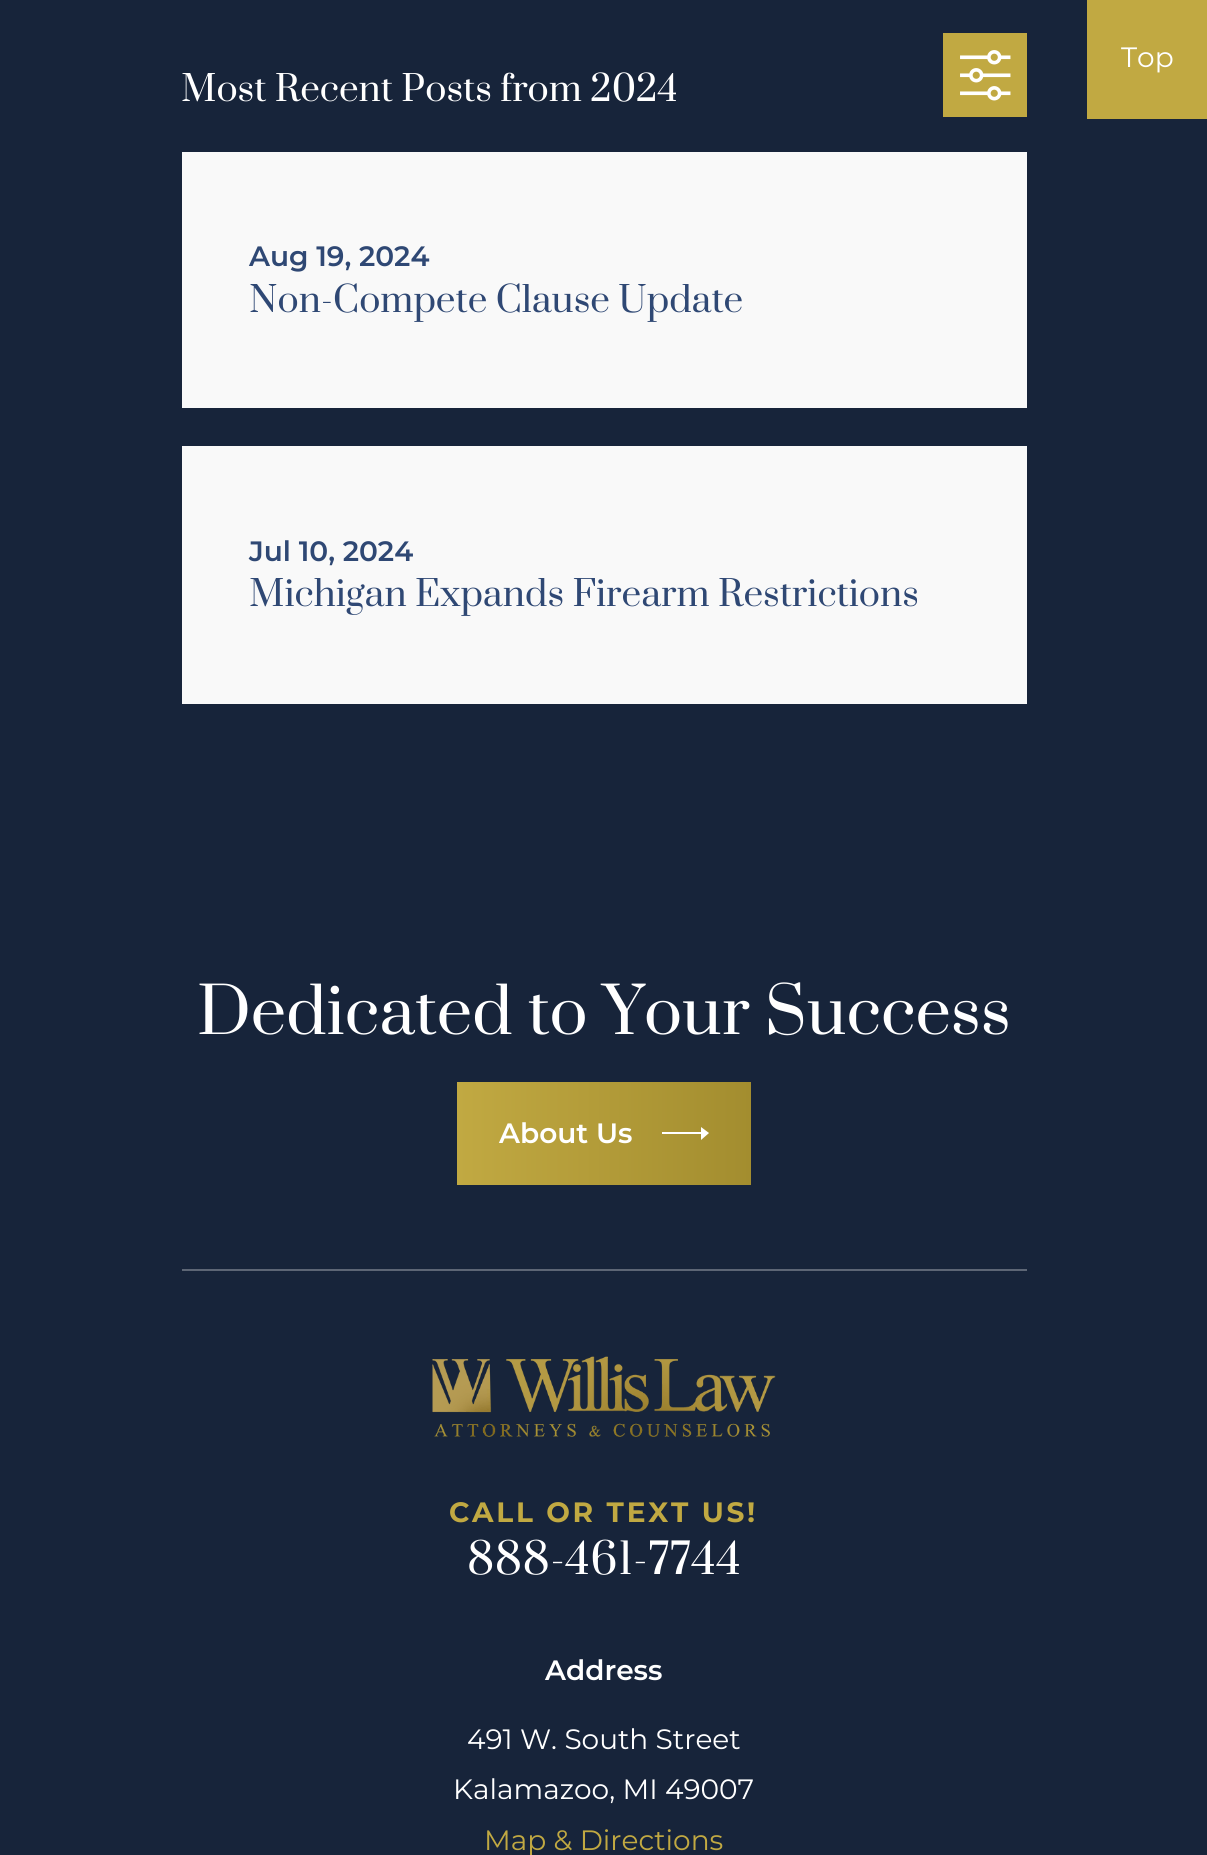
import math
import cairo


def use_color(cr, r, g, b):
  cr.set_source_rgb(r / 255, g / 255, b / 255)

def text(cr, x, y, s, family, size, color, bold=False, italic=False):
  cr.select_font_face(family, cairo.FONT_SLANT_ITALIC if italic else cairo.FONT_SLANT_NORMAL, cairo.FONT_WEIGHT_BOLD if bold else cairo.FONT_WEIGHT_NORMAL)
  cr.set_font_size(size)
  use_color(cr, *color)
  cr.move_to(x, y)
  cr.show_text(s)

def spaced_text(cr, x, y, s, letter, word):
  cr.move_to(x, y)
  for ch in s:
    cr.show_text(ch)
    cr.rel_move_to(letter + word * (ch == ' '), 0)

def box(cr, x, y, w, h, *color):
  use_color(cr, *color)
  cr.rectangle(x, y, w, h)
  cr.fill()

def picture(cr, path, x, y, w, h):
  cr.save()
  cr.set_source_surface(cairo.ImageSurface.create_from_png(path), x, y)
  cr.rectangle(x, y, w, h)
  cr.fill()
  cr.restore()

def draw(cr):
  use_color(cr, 23, 36, 58)
  cr.paint()
  box(cr, 1087, 0, 120, 119, 193, 169, 66)
  box(cr, 943, 33, 84, 84, 193, 169, 66)
  picture(cr, "img_01.png", 960, 50, 51, 51)
  box(cr, 182, 152, 845, 256, 249, 249, 249)
  box(cr, 182, 446, 845, 258, 249, 249, 249)
  box(cr, 182, 1269, 845, 2, 93, 102, 117)
  gradient = cairo.LinearGradient(457, 1133, 751, 1133)
  gradient.add_color_stop_rgba(0, 0.757, 0.663, 0.259, 1)
  gradient.add_color_stop_rgba(1, 0.639, 0.553, 0.184, 1)
  cr.set_source(gradient)
  cr.rectangle(457, 1082, 294, 103)
  cr.fill()
  use_color(cr, 255, 255, 255)
  cr.new_path()
  cr.move_to(701, 1127)
  cr.line_to(701, 1132)
  cr.line_to(662, 1132)
  cr.line_to(662, 1134)
  cr.line_to(701, 1134)
  cr.line_to(701, 1140)
  cr.line_to(709, 1133)
  cr.close_path()
  cr.fill()
  picture(cr, "img_02.png", 432, 1356, 344, 81)
  text(cr, 1121, 67, "Top", "Montserrat", 28, (255, 255, 255))
  text(cr, 181, 101, "Most Recent Posts from 2024", "Prata", 35, (255, 255, 255))
  text(cr, 249, 266, "Aug 19, 2024", "Montserrat SemiBold", 28, (47, 72, 116))
  text(cr, 249, 312, "Non-Compete Clause Update", "Prata", 35, (47, 72, 116))
  text(cr, 249, 561, "Jul 10, 2024", "Montserrat SemiBold", 28, (47, 72, 116))
  text(cr, 249, 606, "Michigan Expands Firearm Restrictions", "Prata", 35, (47, 72, 116))
  text(cr, 197, 1034, "Dedicated to Your Success", "Prata", 63, (255, 255, 255))
  text(cr, 499, 1143, "About Us", "Montserrat SemiBold", 28, (255, 255, 255))
  cr.select_font_face("Montserrat", cairo.FONT_SLANT_NORMAL, cairo.FONT_WEIGHT_BOLD)
  use_color(cr, 193, 169, 66)
  spaced_text(cr, 449, 1522, "CALL OR TEXT US!", 2.75, 0)
  cr.select_font_face("Prata")
  cr.set_font_size(42)
  use_color(cr, 255, 255, 255)
  spaced_text(cr, 467, 1574, "888-461-7744", 0.5, 0)
  text(cr, 545, 1680, "Address", "Montserrat SemiBold", 28, (255, 255, 255))
  text(cr, 467, 1749, "491 W. South Street", "Montserrat", 28, (255, 255, 255))
  text(cr, 453, 1799, "Kalamazoo, MI 49007", "Montserrat", 28, (255, 255, 255))
  text(cr, 484, 1850, "Map & Directions", "Montserrat", 28, (193, 169, 66))


surface = cairo.ImageSurface(cairo.FORMAT_RGB24, 1207, 1855)
cr = cairo.Context(surface)
options = cairo.FontOptions()
options.set_hint_metrics(cairo.HINT_METRICS_OFF)
options.set_hint_style(cairo.HINT_STYLE_NONE)
cr.set_font_options(options)
cr.set_miter_limit(4)
draw(cr)
surface.write_to_png("out.png")
